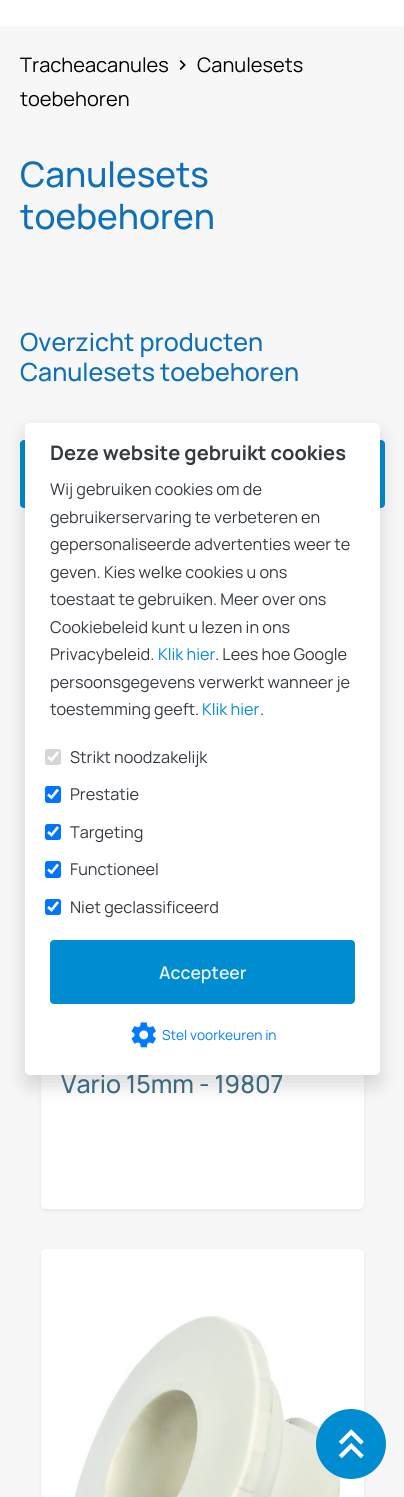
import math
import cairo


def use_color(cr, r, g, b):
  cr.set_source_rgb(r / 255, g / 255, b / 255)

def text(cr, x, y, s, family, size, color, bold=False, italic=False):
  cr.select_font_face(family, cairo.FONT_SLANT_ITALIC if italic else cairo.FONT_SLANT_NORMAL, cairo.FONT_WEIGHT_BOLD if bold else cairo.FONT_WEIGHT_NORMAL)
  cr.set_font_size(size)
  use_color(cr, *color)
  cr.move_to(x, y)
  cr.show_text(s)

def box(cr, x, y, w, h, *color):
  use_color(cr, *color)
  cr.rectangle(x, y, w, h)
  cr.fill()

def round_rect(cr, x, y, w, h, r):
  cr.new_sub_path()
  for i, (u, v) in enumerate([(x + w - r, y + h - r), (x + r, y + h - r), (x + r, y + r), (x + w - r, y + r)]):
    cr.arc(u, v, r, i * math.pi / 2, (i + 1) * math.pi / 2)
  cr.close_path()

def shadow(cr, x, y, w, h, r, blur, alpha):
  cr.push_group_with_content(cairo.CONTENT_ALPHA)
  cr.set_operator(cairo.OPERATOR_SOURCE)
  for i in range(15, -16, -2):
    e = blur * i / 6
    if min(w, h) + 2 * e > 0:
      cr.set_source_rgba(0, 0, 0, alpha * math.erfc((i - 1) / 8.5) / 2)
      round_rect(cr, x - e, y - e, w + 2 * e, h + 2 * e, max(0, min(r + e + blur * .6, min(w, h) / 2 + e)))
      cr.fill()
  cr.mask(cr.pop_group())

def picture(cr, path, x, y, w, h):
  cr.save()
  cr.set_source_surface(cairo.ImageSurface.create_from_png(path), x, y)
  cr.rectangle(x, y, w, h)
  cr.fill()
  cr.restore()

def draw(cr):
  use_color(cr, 255, 255, 255)
  cr.paint()
  box(cr, 0, 26, 404, 1471, 248, 247, 247)
  picture(cr, "img_01.png", 179, 60, 7, 10)
  use_color(cr, 0, 140, 209)
  round_rect(cr, 20, 440, 365, 68, 4)
  cr.fill()
  use_color(cr, 0, 0, 0)
  shadow(cr, 41, 610, 323, 601, 5, 2.5, 0.07)
  use_color(cr, 255, 255, 255)
  round_rect(cr, 41, 608, 323, 601, 5)
  cr.fill()
  use_color(cr, 0, 0, 0)
  shadow(cr, 41, 1251, 323, 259, 5, 2.5, 0.07)
  use_color(cr, 255, 255, 255)
  round_rect(cr, 41, 1249, 323, 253, 5)
  cr.fill()
  picture(cr, "img_02.png", 74, 1316, 267, 181)
  use_color(cr, 0, 0, 0)
  shadow(cr, 25, 433, 355, 652, 5, 10, 0.15)
  use_color(cr, 0, 140, 209)
  cr.arc(351, 1444, 35, 0, 2 * math.pi)
  cr.fill()
  picture(cr, "img_04.png", 338, 1429, 26, 30)
  text(cr, 20, 72, "Tracheacanules", "Manrope", 20, (0, 0, 0))
  text(cr, 197, 72, "Canulesets", "Manrope", 20, (0, 0, 0))
  text(cr, 20, 106, "toebehoren", "Manrope", 20, (0, 0, 0))
  text(cr, 20, 187, "Canulesets", "Manrope Medium", 35, (14, 112, 183))
  text(cr, 20, 229, "toebehoren", "Manrope Medium", 35, (14, 112, 183))
  text(cr, 20, 351, "Overzicht producten", "Manrope Medium", 25, (14, 112, 183))
  text(cr, 20, 381, "Canulesets toebehoren", "Manrope Medium", 25, (14, 112, 183))
  text(cr, 61, 1093, "Vario 15mm - 19807", "Manrope Medium", 25, (59, 106, 127))
  use_color(cr, 255, 255, 255)
  round_rect(cr, 25, 423, 355, 652, 5)
  cr.fill()
  text(cr, 50, 460, "Deze website gebruikt cookies", "Manrope", 20, (52, 58, 64), bold=True)
  text(cr, 50, 495, "Wij gebruiken cookies om de", "Manrope", 16.25, (52, 58, 64))
  text(cr, 50, 523, "gebruikerservaring te verbeteren en", "Manrope", 16.25, (52, 58, 64))
  text(cr, 50, 550, "gepersonaliseerde advertenties weer te", "Manrope", 16.25, (52, 58, 64))
  text(cr, 50, 578, "geven. Kies welke cookies u ons", "Manrope", 16.25, (52, 58, 64))
  text(cr, 50, 605, "toestaat te gebruiken. Meer over ons", "Manrope", 16.25, (52, 58, 64))
  text(cr, 50, 633, "Cookiebeleid kunt u lezen in ons", "Manrope", 16.25, (52, 58, 64))
  text(cr, 50, 660, "Privacybeleid.", "Manrope", 16.25, (52, 58, 64))
  text(cr, 158, 660, "Klik hier", "Manrope", 16.25, (0, 140, 209))
  text(cr, 215, 660, ". Lees hoe Google", "Manrope", 16.25, (52, 58, 64))
  text(cr, 50, 688, "persoonsgegevens verwerkt wanneer je", "Manrope", 16.25, (52, 58, 64))
  text(cr, 50, 715, "toestemming geeft.", "Manrope", 16.25, (52, 58, 64))
  text(cr, 202, 715, "Klik hier", "Manrope", 16.25, (0, 140, 209))
  text(cr, 260, 715, ".", "Manrope", 16.25, (52, 58, 64))
  use_color(cr, 214, 214, 214)
  round_rect(cr, 45, 749, 16, 16, 2.5)
  cr.fill()
  cr.new_path()
  cr.move_to(48, 757)
  cr.line_to(51.5, 760)
  cr.line_to(58, 752)
  use_color(cr, 255, 255, 255)
  cr.set_line_width(2.6)
  cr.stroke()
  text(cr, 70, 763, "Strikt noodzakelijk", "Manrope", 16.25, (52, 58, 64))
  use_color(cr, 0, 117, 255)
  round_rect(cr, 45, 786, 16, 17, 2.5)
  cr.fill()
  cr.new_path()
  cr.move_to(48, 794.5)
  cr.line_to(51.5, 797.5)
  cr.line_to(58, 789.5)
  use_color(cr, 255, 255, 255)
  cr.stroke()
  text(cr, 70, 800, "Prestatie", "Manrope", 16.25, (52, 58, 64))
  use_color(cr, 0, 117, 255)
  round_rect(cr, 45, 824, 16, 16, 2.5)
  cr.fill()
  cr.new_path()
  cr.move_to(48, 832)
  cr.line_to(51.5, 835)
  cr.line_to(58, 827)
  use_color(cr, 255, 255, 255)
  cr.stroke()
  text(cr, 70, 838, "Targeting", "Manrope", 16.25, (52, 58, 64))
  use_color(cr, 0, 117, 255)
  round_rect(cr, 45, 861, 16, 17, 2.5)
  cr.fill()
  cr.new_path()
  cr.move_to(48, 869.5)
  cr.line_to(51.5, 872.5)
  cr.line_to(58, 864.5)
  use_color(cr, 255, 255, 255)
  cr.stroke()
  text(cr, 70, 875, "Functioneel", "Manrope", 16.25, (52, 58, 64))
  use_color(cr, 0, 117, 255)
  round_rect(cr, 45, 899, 16, 16, 2.5)
  cr.fill()
  cr.new_path()
  cr.move_to(48, 907)
  cr.line_to(51.5, 910)
  cr.line_to(58, 902)
  use_color(cr, 255, 255, 255)
  cr.stroke()
  text(cr, 70, 913, "Niet geclassificeerd", "Manrope", 16.25, (52, 58, 64))
  use_color(cr, 0, 140, 209)
  round_rect(cr, 50, 940, 305, 64, 4)
  cr.fill()
  text(cr, 159, 979, "Accepteer", "Manrope SemiBold", 17.5, (230, 244, 250))
  picture(cr, "img_03.png", 131, 1022, 25, 26)
  text(cr, 162, 1040, "Stel voorkeuren in", "Manrope", 13.75, (0, 123, 255))


surface = cairo.ImageSurface(cairo.FORMAT_RGB24, 404, 1497)
cr = cairo.Context(surface)
options = cairo.FontOptions()
options.set_hint_metrics(cairo.HINT_METRICS_OFF)
options.set_hint_style(cairo.HINT_STYLE_NONE)
cr.set_font_options(options)
cr.set_miter_limit(4)
draw(cr)
surface.write_to_png("out.png")
